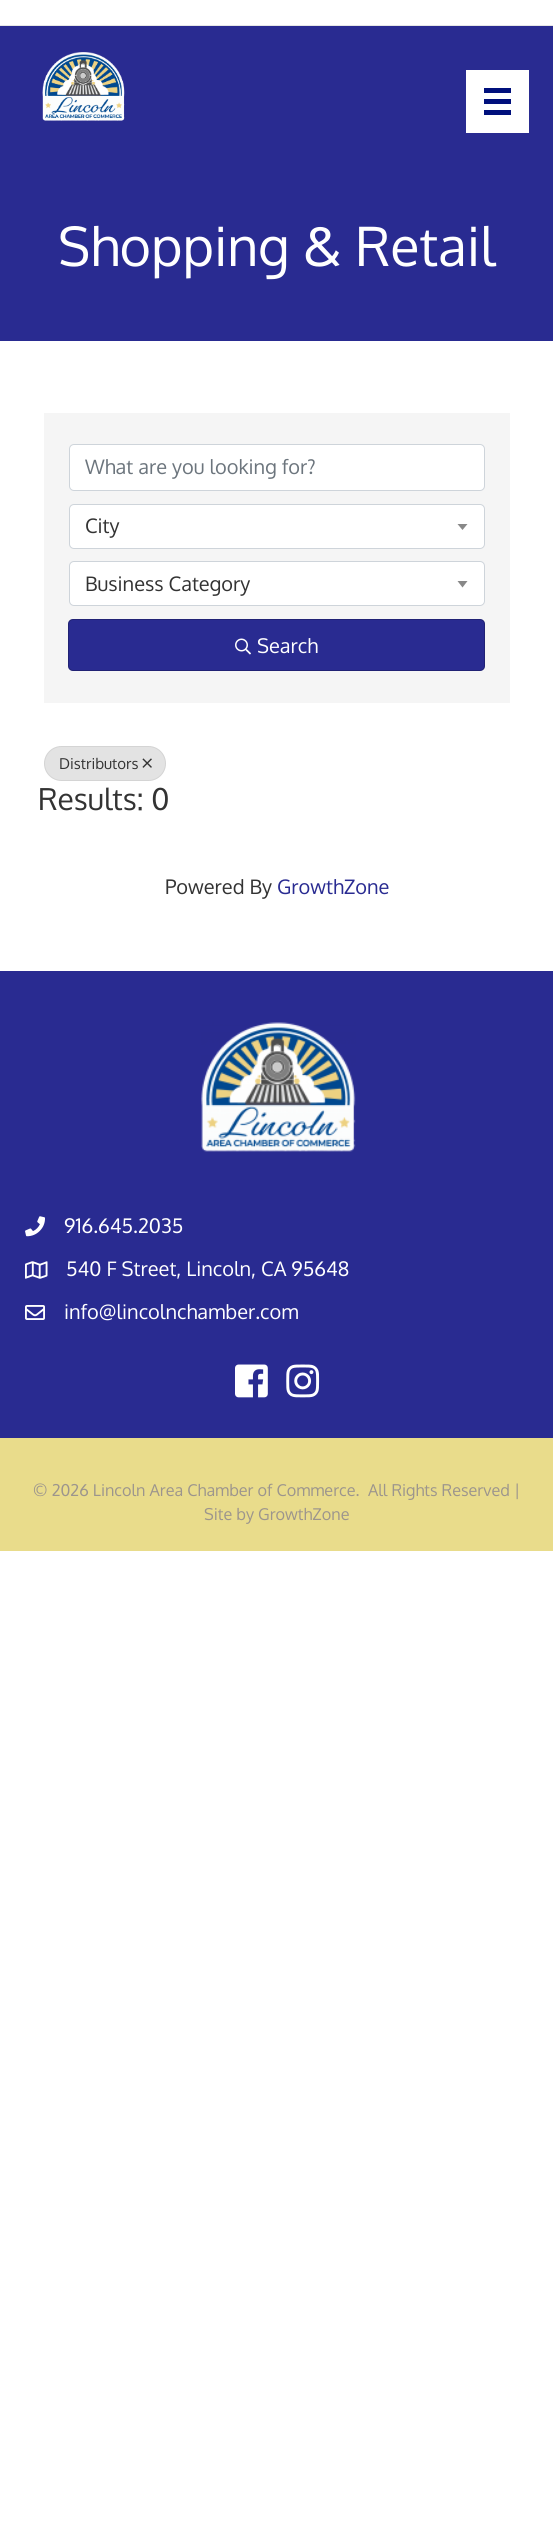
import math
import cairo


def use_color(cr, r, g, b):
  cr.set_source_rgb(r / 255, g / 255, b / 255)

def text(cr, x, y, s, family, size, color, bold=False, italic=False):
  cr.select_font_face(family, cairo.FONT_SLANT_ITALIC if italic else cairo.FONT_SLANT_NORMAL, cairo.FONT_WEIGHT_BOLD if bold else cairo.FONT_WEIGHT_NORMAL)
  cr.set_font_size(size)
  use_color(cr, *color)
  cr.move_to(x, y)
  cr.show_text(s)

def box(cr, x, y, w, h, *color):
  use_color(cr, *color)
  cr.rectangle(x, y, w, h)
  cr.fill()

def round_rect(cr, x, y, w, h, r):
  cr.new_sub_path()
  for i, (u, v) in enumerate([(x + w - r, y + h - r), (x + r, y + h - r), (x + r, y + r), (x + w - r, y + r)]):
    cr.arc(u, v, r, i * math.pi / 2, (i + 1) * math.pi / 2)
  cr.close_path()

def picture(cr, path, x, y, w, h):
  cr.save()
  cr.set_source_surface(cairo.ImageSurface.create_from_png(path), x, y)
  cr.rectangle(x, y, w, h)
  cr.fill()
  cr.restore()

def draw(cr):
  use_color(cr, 255, 255, 255)
  cr.paint()
  box(cr, 0, 25, 553, 1, 230, 230, 230)
  box(cr, 0, 26, 553, 315, 41, 43, 145)
  picture(cr, "img_01.png", 42, 52, 83, 69)
  box(cr, 466, 70, 63, 63, 255, 255, 255)
  box(cr, 484, 88, 27, 5, 0, 16, 124)
  box(cr, 484, 99, 27, 5, 0, 16, 124)
  box(cr, 484, 110, 27, 5, 0, 16, 124)
  box(cr, 44, 413, 466, 290, 245, 245, 245)
  use_color(cr, 255, 255, 255)
  round_rect(cr, 69.5, 444.5, 415, 46, 4.5)
  cr.fill_preserve()
  use_color(cr, 206, 212, 218)
  cr.set_line_width(1)
  cr.stroke()
  use_color(cr, 255, 255, 255)
  round_rect(cr, 69.5, 504.5, 415, 44, 4.5)
  cr.fill_preserve()
  use_color(cr, 206, 212, 218)
  cr.stroke()
  use_color(cr, 136, 136, 136)
  cr.new_path()
  cr.move_to(457.5, 524)
  cr.line_to(467.5, 524)
  cr.line_to(462.5, 530)
  cr.close_path()
  cr.fill()
  use_color(cr, 255, 255, 255)
  round_rect(cr, 69.5, 561.5, 415, 44, 4.5)
  cr.fill_preserve()
  use_color(cr, 206, 212, 218)
  cr.stroke()
  use_color(cr, 136, 136, 136)
  cr.new_path()
  cr.move_to(457.5, 581)
  cr.line_to(467.5, 581)
  cr.line_to(462.5, 587.5)
  cr.close_path()
  cr.fill()
  use_color(cr, 41, 43, 145)
  round_rect(cr, 68, 619, 417, 52, 5)
  cr.fill()
  round_rect(cr, 68.5, 619.5, 416, 51, 4.5)
  cr.set_source_rgba(0, 0, 0, 0.2)
  cr.stroke()
  picture(cr, "img_02.png", 235, 638, 16, 17)
  use_color(cr, 227, 227, 227)
  round_rect(cr, 44, 746, 122, 35, 17.5)
  cr.fill()
  round_rect(cr, 44.5, 746.5, 121, 34, 17)
  cr.set_source_rgba(0, 0, 0, 0.07)
  cr.stroke()
  picture(cr, "img_03.png", 142, 758, 10, 10)
  box(cr, 0, 971, 553, 467, 41, 43, 145)
  picture(cr, "img_04.png", 201, 1022, 155, 130)
  picture(cr, "img_05.png", 25, 1216, 20, 21)
  picture(cr, "img_06.png", 25, 1261, 23, 18)
  picture(cr, "img_07.png", 25, 1305, 20, 15)
  picture(cr, "img_08.png", 235, 1364, 33, 34)
  picture(cr, "img_09.png", 286, 1364, 34, 34)
  box(cr, 0, 1438, 553, 113, 233, 220, 139)
  text(cr, 58, 266, "Shopping & Retail", "Oxygen", 53.75, (255, 255, 255))
  text(cr, 85, 474, "What are you looking for?", "Oxygen", 20, (108, 117, 125))
  text(cr, 85, 533, "City", "Oxygen", 20, (51, 51, 51))
  text(cr, 85, 591, "Business Category", "Oxygen", 20, (51, 51, 51))
  text(cr, 257, 653, "Search", "Oxygen", 20, (255, 255, 255))
  text(cr, 59, 769, "Distributors", "Oxygen", 15, (51, 51, 51))
  text(cr, 38, 810, "Results: 0", "Oxygen", 30, (51, 51, 51))
  text(cr, 165, 894, "Powered By", "Oxygen", 20, (51, 51, 51))
  text(cr, 277, 894, "GrowthZone", "Oxygen", 20, (41, 43, 145))
  text(cr, 64, 1233, "916.645.2035", "Oxygen", 20, (255, 255, 255))
  text(cr, 66, 1276, "540 F Street, Lincoln, CA 95648", "Oxygen", 20, (255, 255, 255))
  text(cr, 64, 1319, "info@lincolnchamber.com", "Oxygen", 20, (255, 255, 255))
  text(cr, 33, 1496, "© 2026 Lincoln Area Chamber of Commerce.", "Oxygen", 16.25, (156, 149, 141))
  text(cr, 368, 1496, "All Rights Reserved |", "Oxygen", 16.25, (156, 149, 141))
  text(cr, 204, 1520, "Site by GrowthZone", "Oxygen", 16.25, (156, 149, 141))


surface = cairo.ImageSurface(cairo.FORMAT_RGB24, 553, 2538)
cr = cairo.Context(surface)
options = cairo.FontOptions()
options.set_hint_metrics(cairo.HINT_METRICS_OFF)
options.set_hint_style(cairo.HINT_STYLE_NONE)
cr.set_font_options(options)
cr.set_miter_limit(4)
draw(cr)
surface.write_to_png("out.png")
